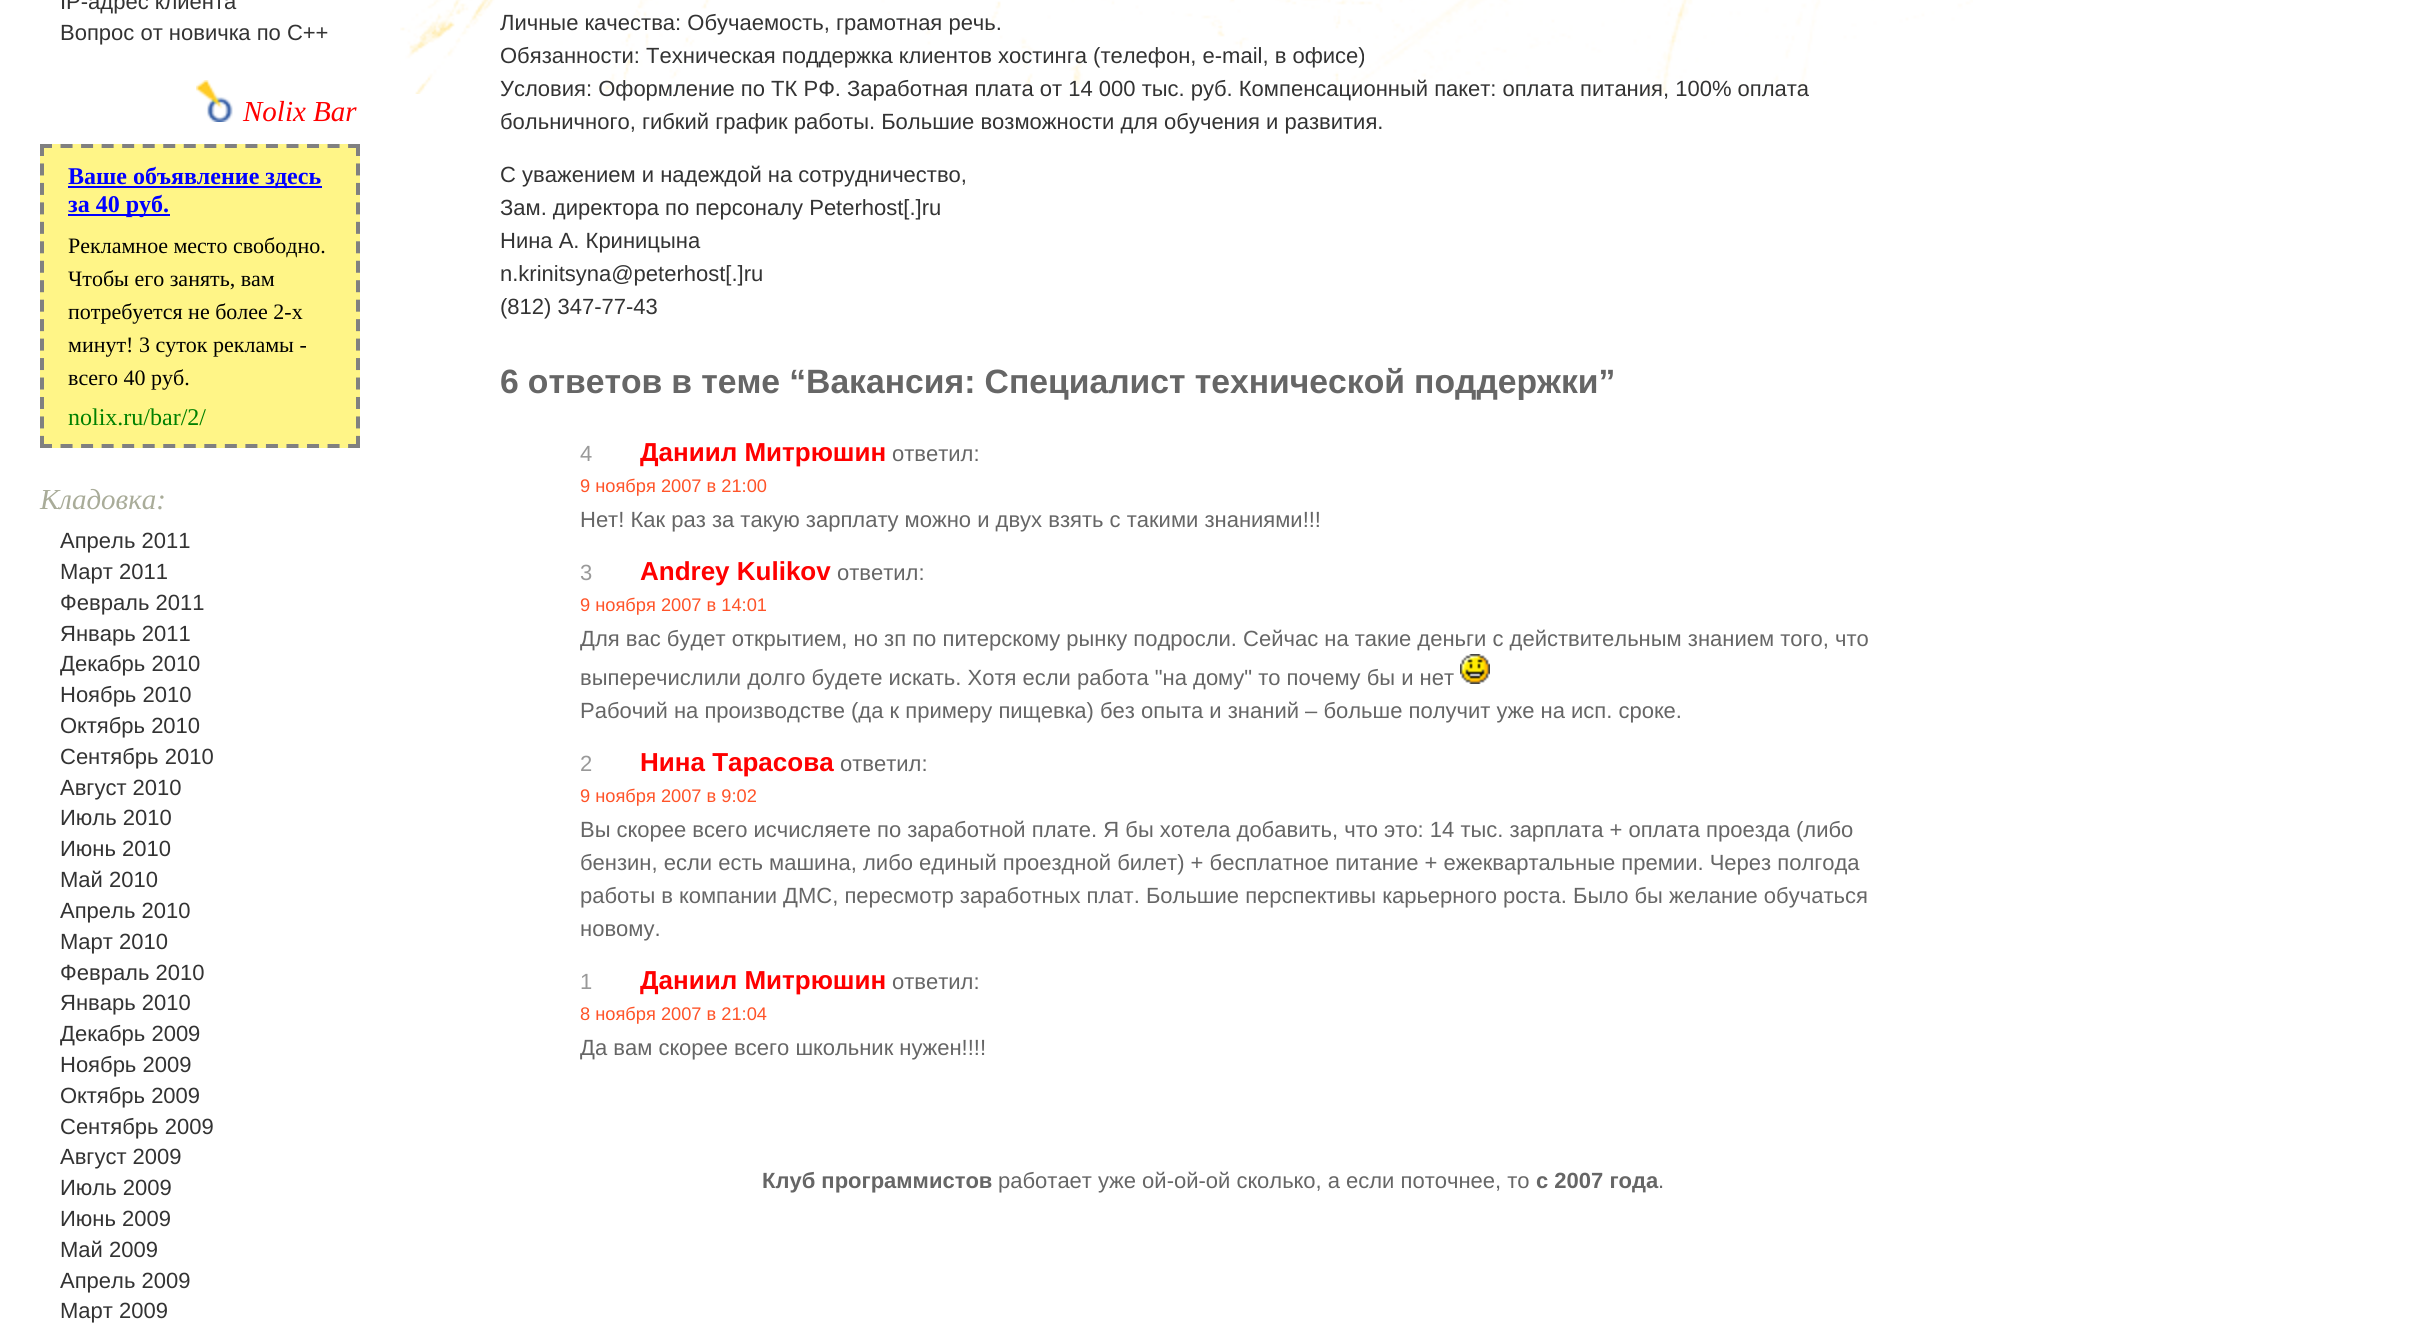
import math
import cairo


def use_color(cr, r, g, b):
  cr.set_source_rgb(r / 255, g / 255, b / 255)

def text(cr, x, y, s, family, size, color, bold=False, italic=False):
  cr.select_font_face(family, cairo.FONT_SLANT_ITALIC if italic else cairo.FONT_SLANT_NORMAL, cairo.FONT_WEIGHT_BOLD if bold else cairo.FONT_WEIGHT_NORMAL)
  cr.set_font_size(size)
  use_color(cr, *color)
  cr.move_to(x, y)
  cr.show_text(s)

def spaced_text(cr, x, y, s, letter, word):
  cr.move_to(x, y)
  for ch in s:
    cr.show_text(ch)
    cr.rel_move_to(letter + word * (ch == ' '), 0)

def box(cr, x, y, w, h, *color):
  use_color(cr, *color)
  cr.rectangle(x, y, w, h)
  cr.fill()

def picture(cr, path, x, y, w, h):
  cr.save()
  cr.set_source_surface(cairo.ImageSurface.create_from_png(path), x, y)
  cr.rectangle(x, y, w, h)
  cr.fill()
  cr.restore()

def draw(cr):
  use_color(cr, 255, 255, 255)
  cr.paint()
  picture(cr, "img_01.png", 400, 0, 1573, 94)
  picture(cr, "img_02.png", 196, 80, 37, 42)
  box(cr, 40, 144, 320, 304, 255, 245, 135)
  cr.new_path()
  cr.move_to(40, 146)
  cr.line_to(360, 146)
  use_color(cr, 128, 128, 128)
  cr.set_line_width(4)
  cr.set_dash([12, 8.54])
  cr.stroke()
  cr.new_path()
  cr.move_to(358, 144)
  cr.line_to(358, 448)
  cr.set_dash([12, 7.46])
  cr.stroke()
  cr.new_path()
  cr.move_to(40, 446)
  cr.line_to(360, 446)
  cr.set_dash([12, 8.54])
  cr.stroke()
  cr.new_path()
  cr.move_to(42, 144)
  cr.line_to(42, 448)
  cr.set_dash([12, 7.46])
  cr.stroke()
  box(cr, 68, 186, 254, 2, 0, 0, 255)
  box(cr, 68, 214, 102, 2, 0, 0, 255)
  picture(cr, "img_03.png", 1460, 654, 30, 30)
  text(cr, 60, 9, "IP-адрес клиента", "Liberation Sans", 22, (51, 51, 51))
  text(cr, 60, 40, "Вопрос от новичка по С++", "Liberation Sans", 22, (51, 51, 51))
  text(cr, 243, 121, "Nolix Bar", "Liberation Serif", 29, (255, 0, 0), italic=True)
  text(cr, 68, 184, "Ваше объявление здесь", "Liberation Serif", 24, (0, 0, 255), bold=True)
  text(cr, 68, 212, "за 40 руб.", "Liberation Serif", 24, (0, 0, 255), bold=True)
  text(cr, 68, 253, "Рекламное место свободно.", "Liberation Serif", 22, (0, 0, 0))
  text(cr, 68, 286, "Чтобы его занять, вам", "Liberation Serif", 22, (0, 0, 0))
  text(cr, 68, 319, "потребуется не более 2-х", "Liberation Serif", 22, (0, 0, 0))
  text(cr, 68, 352, "минут! 3 суток рекламы -", "Liberation Serif", 22, (0, 0, 0))
  text(cr, 68, 385, "всего 40 руб.", "Liberation Serif", 22, (0, 0, 0))
  text(cr, 68, 425, "nolix.ru/bar/2/", "Liberation Serif", 24, (0, 128, 0))
  text(cr, 40, 509, "Кладовка:", "Liberation Serif", 29, (169, 172, 153), italic=True)
  text(cr, 60, 548, "Апрель 2011", "Liberation Sans", 22, (51, 51, 51))
  text(cr, 60, 579, "Март 2011", "Liberation Sans", 22, (51, 51, 51))
  text(cr, 60, 610, "Февраль 2011", "Liberation Sans", 22, (51, 51, 51))
  text(cr, 60, 641, "Январь 2011", "Liberation Sans", 22, (51, 51, 51))
  text(cr, 60, 671, "Декабрь 2010", "Liberation Sans", 22, (51, 51, 51))
  text(cr, 60, 702, "Ноябрь 2010", "Liberation Sans", 22, (51, 51, 51))
  text(cr, 60, 733, "Октябрь 2010", "Liberation Sans", 22, (51, 51, 51))
  text(cr, 60, 764, "Сентябрь 2010", "Liberation Sans", 22, (51, 51, 51))
  text(cr, 60, 795, "Август 2010", "Liberation Sans", 22, (51, 51, 51))
  text(cr, 60, 825, "Июль 2010", "Liberation Sans", 22, (51, 51, 51))
  text(cr, 60, 856, "Июнь 2010", "Liberation Sans", 22, (51, 51, 51))
  text(cr, 60, 887, "Май 2010", "Liberation Sans", 22, (51, 51, 51))
  text(cr, 60, 918, "Апрель 2010", "Liberation Sans", 22, (51, 51, 51))
  text(cr, 60, 949, "Март 2010", "Liberation Sans", 22, (51, 51, 51))
  text(cr, 60, 980, "Февраль 2010", "Liberation Sans", 22, (51, 51, 51))
  text(cr, 60, 1010, "Январь 2010", "Liberation Sans", 22, (51, 51, 51))
  text(cr, 60, 1041, "Декабрь 2009", "Liberation Sans", 22, (51, 51, 51))
  text(cr, 60, 1072, "Ноябрь 2009", "Liberation Sans", 22, (51, 51, 51))
  text(cr, 60, 1103, "Октябрь 2009", "Liberation Sans", 22, (51, 51, 51))
  text(cr, 60, 1134, "Сентябрь 2009", "Liberation Sans", 22, (51, 51, 51))
  text(cr, 60, 1164, "Август 2009", "Liberation Sans", 22, (51, 51, 51))
  text(cr, 60, 1195, "Июль 2009", "Liberation Sans", 22, (51, 51, 51))
  text(cr, 60, 1226, "Июнь 2009", "Liberation Sans", 22, (51, 51, 51))
  text(cr, 60, 1257, "Май 2009", "Liberation Sans", 22, (51, 51, 51))
  text(cr, 60, 1288, "Апрель 2009", "Liberation Sans", 22, (51, 51, 51))
  text(cr, 60, 1318, "Март 2009", "Liberation Sans", 22, (51, 51, 51))
  text(cr, 500, 30, "Личные качества: Обучаемость, грамотная речь.", "Liberation Sans", 22, (51, 51, 51))
  text(cr, 500, 63, "Обязанности: Техническая поддержка клиентов хостинга (телефон, e-mail, в офисе)", "Liberation Sans", 22, (51, 51, 51))
  text(cr, 500, 96, "Условия: Оформление по ТК РФ. Заработная плата от 14 000 тыс. руб. Компенсационный пакет: оплата питания, 100% оплата", "Liberation Sans", 22, (51, 51, 51))
  text(cr, 500, 129, "больничного, гибкий график работы. Большие возможности для обучения и развития.", "Liberation Sans", 22, (51, 51, 51))
  text(cr, 500, 182, "С уважением и надеждой на сотрудничество,", "Liberation Sans", 22, (51, 51, 51))
  text(cr, 500, 215, "Зам. директора по персоналу Peterhost[.]ru", "Liberation Sans", 22, (51, 51, 51))
  text(cr, 500, 248, "Нина А. Криницына", "Liberation Sans", 22, (51, 51, 51))
  text(cr, 500, 281, "n.krinitsyna@peterhost[.]ru", "Liberation Sans", 22, (51, 51, 51))
  text(cr, 500, 314, "(812) 347-77-43", "Liberation Sans", 22, (51, 51, 51))
  cr.select_font_face("Liberation Sans", cairo.FONT_SLANT_NORMAL, cairo.FONT_WEIGHT_BOLD)
  cr.set_font_size(33.7)
  use_color(cr, 102, 102, 102)
  spaced_text(cr, 500, 393, "6 ответов в теме “Вакансия: Специалист технической поддержки”", 0, -0.25)
  text(cr, 580, 461, "4", "Liberation Sans", 22, (153, 153, 153))
  text(cr, 640, 461, "Даниил Митрюшин", "Liberation Sans", 26, (255, 0, 0), bold=True)
  text(cr, 892, 461, "ответил:", "Liberation Sans", 22, (102, 102, 102))
  text(cr, 580, 492, "9 ноября 2007 в 21:00", "Liberation Sans", 18.25, (255, 83, 40))
  text(cr, 580, 527, "Нет! Как раз за такую зарплату можно и двух взять с такими знаниями!!!", "Liberation Sans", 22, (102, 102, 102))
  text(cr, 580, 580, "3", "Liberation Sans", 22, (153, 153, 153))
  text(cr, 640, 580, "Andrey Kulikov", "Liberation Sans", 26, (255, 0, 0), bold=True)
  text(cr, 837, 580, "ответил:", "Liberation Sans", 22, (102, 102, 102))
  text(cr, 580, 611, "9 ноября 2007 в 14:01", "Liberation Sans", 18.25, (255, 83, 40))
  text(cr, 580, 646, "Для вас будет открытием, но зп по питерскому рынку подросли. Сейчас на такие деньги с действительным знанием того, что", "Liberation Sans", 22, (102, 102, 102))
  text(cr, 580, 685, "выперечислили долго будете искать. Хотя если работа \"на дому\" то почему бы и нет", "Liberation Sans", 22, (102, 102, 102))
  text(cr, 580, 718, "Рабочий на производстве (да к примеру пищевка) без опыта и знаний – больше получит уже на исп. сроке.", "Liberation Sans", 22, (102, 102, 102))
  text(cr, 580, 771, "2", "Liberation Sans", 22, (153, 153, 153))
  text(cr, 640, 771, "Нина Тарасова", "Liberation Sans", 26, (255, 0, 0), bold=True)
  text(cr, 840, 771, "ответил:", "Liberation Sans", 22, (102, 102, 102))
  text(cr, 580, 802, "9 ноября 2007 в 9:02", "Liberation Sans", 18.25, (255, 83, 40))
  text(cr, 580, 837, "Вы скорее всего исчисляете по заработной плате. Я бы хотела добавить, что это: 14 тыс. зарплата + оплата проезда (либо", "Liberation Sans", 22, (102, 102, 102))
  text(cr, 580, 870, "бензин, если есть машина, либо единый проездной билет) + бесплатное питание + ежеквартальные премии. Через полгода", "Liberation Sans", 22, (102, 102, 102))
  text(cr, 580, 903, "работы в компании ДМС, пересмотр заработных плат. Большие перспективы карьерного роста. Было бы желание обучаться", "Liberation Sans", 22, (102, 102, 102))
  text(cr, 580, 936, "новому.", "Liberation Sans", 22, (102, 102, 102))
  text(cr, 580, 989, "1", "Liberation Sans", 22, (153, 153, 153))
  text(cr, 640, 989, "Даниил Митрюшин", "Liberation Sans", 26, (255, 0, 0), bold=True)
  text(cr, 892, 989, "ответил:", "Liberation Sans", 22, (102, 102, 102))
  text(cr, 580, 1020, "8 ноября 2007 в 21:04", "Liberation Sans", 18.25, (255, 83, 40))
  text(cr, 580, 1055, "Да вам скорее всего школьник нужен!!!!", "Liberation Sans", 22, (102, 102, 102))
  text(cr, 762, 1188, "Клуб программистов", "Liberation Sans", 22, (102, 102, 102), bold=True)
  text(cr, 998, 1188, "работает уже ой-ой-ой сколько, а если поточнее, то", "Liberation Sans", 22, (102, 102, 102))
  text(cr, 1536, 1188, "с 2007 года", "Liberation Sans", 22, (102, 102, 102), bold=True)
  text(cr, 1658, 1188, ".", "Liberation Sans", 22, (102, 102, 102))


surface = cairo.ImageSurface(cairo.FORMAT_RGB24, 2425, 1326)
cr = cairo.Context(surface)
options = cairo.FontOptions()
options.set_hint_metrics(cairo.HINT_METRICS_OFF)
options.set_hint_style(cairo.HINT_STYLE_NONE)
cr.set_font_options(options)
cr.set_miter_limit(4)
draw(cr)
surface.write_to_png("out.png")
